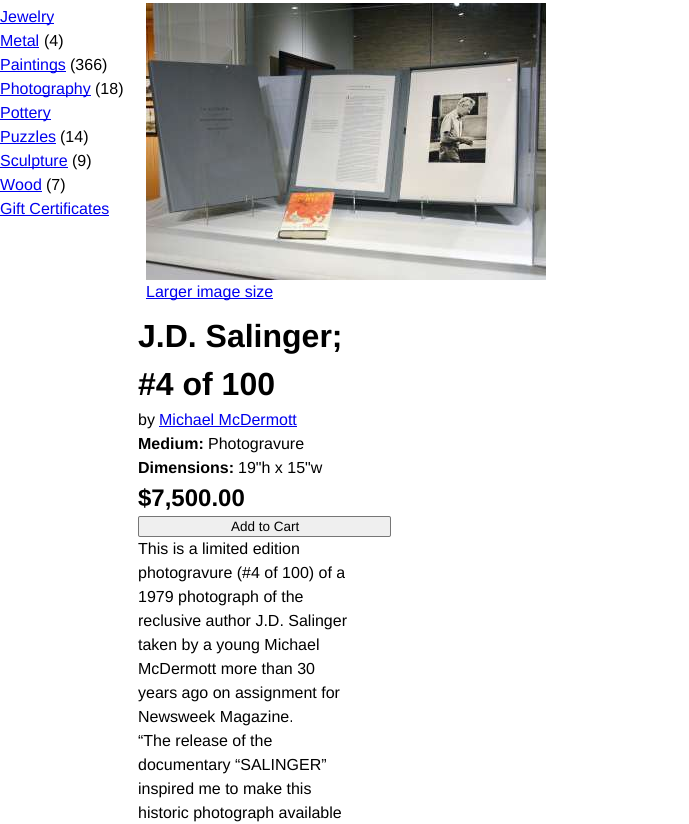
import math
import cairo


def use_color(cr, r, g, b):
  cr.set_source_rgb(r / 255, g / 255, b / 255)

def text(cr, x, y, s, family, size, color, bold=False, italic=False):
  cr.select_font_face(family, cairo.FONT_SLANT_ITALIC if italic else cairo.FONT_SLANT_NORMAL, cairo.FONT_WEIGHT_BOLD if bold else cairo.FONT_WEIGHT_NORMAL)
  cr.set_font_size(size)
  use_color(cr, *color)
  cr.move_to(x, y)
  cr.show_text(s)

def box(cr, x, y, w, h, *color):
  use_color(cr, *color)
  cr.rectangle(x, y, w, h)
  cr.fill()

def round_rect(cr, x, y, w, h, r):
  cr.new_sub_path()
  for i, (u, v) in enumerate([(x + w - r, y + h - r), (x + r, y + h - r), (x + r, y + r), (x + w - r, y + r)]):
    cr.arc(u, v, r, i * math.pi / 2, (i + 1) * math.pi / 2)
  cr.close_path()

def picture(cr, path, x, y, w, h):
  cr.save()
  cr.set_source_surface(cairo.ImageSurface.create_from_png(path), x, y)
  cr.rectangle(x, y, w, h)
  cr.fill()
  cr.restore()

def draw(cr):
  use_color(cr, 255, 255, 255)
  cr.paint()
  box(cr, 0, 23, 54, 1, 0, 0, 238)
  box(cr, 0, 47, 39, 1, 0, 0, 238)
  box(cr, 0, 71, 66, 1, 0, 0, 238)
  box(cr, 0, 95, 91, 1, 0, 0, 238)
  box(cr, 0, 119, 51, 1, 0, 0, 238)
  box(cr, 0, 143, 56, 1, 0, 0, 238)
  box(cr, 0, 167, 68, 1, 0, 0, 238)
  box(cr, 0, 191, 42, 1, 0, 0, 238)
  box(cr, 0, 215, 109, 1, 0, 0, 238)
  picture(cr, "img_01.png", 146, 3, 400, 277)
  box(cr, 146, 298, 127, 1, 0, 0, 238)
  box(cr, 159, 426, 138, 1, 0, 0, 238)
  use_color(cr, 239, 239, 239)
  round_rect(cr, 138.5, 516.5, 252, 20, 1.5)
  cr.fill_preserve()
  use_color(cr, 118, 118, 118)
  cr.set_line_width(1)
  cr.stroke()
  text(cr, 0, 22, "Jewelry", "Liberation Sans", 16, (0, 0, 238))
  text(cr, 0, 46, "Metal", "Liberation Sans", 16, (0, 0, 238))
  text(cr, 44, 46, "(4)", "Liberation Sans", 16, (0, 0, 0))
  text(cr, 0, 70, "Paintings", "Liberation Sans", 16, (0, 0, 238))
  text(cr, 70, 70, "(366)", "Liberation Sans", 16, (0, 0, 0))
  text(cr, 0, 94, "Photography", "Liberation Sans", 16, (0, 0, 238))
  text(cr, 95, 94, "(18)", "Liberation Sans", 16, (0, 0, 0))
  text(cr, 0, 118, "Pottery", "Liberation Sans", 16, (0, 0, 238))
  text(cr, 0, 142, "Puzzles", "Liberation Sans", 16, (0, 0, 238))
  text(cr, 60, 142, "(14)", "Liberation Sans", 16, (0, 0, 0))
  text(cr, 0, 166, "Sculpture", "Liberation Sans", 16, (0, 0, 238))
  text(cr, 72, 166, "(9)", "Liberation Sans", 16, (0, 0, 0))
  text(cr, 0, 190, "Wood", "Liberation Sans", 16, (0, 0, 238))
  text(cr, 46, 190, "(7)", "Liberation Sans", 16, (0, 0, 0))
  text(cr, 0, 214, "Gift Certificates", "Liberation Sans", 16, (0, 0, 238))
  text(cr, 146, 297, "Larger image size", "Liberation Sans", 16, (0, 0, 238))
  text(cr, 138, 347, "J.D. Salinger;", "Liberation Sans", 32, (0, 0, 0), bold=True)
  text(cr, 138, 395, "#4 of 100", "Liberation Sans", 32, (0, 0, 0), bold=True)
  text(cr, 138, 425, "by", "Liberation Sans", 16, (0, 0, 0))
  text(cr, 159, 425, "Michael McDermott", "Liberation Sans", 16, (0, 0, 238))
  text(cr, 138, 449, "Medium:", "Liberation Sans", 16, (0, 0, 0), bold=True)
  text(cr, 208, 449, "Photogravure", "Liberation Sans", 16, (0, 0, 0))
  text(cr, 138, 473, "Dimensions:", "Liberation Sans", 16, (0, 0, 0), bold=True)
  text(cr, 238, 473, "19\"h x 15\"w", "Liberation Sans", 16, (0, 0, 0))
  text(cr, 138, 506, "$7,500.00", "Liberation Sans", 24, (0, 0, 0), bold=True)
  text(cr, 231, 531, "Add to Cart", "Liberation Sans", 13.5, (0, 0, 0))
  text(cr, 138, 554, "This is a limited edition", "Liberation Sans", 16, (0, 0, 0))
  text(cr, 138, 578, "photogravure (#4 of 100) of a", "Liberation Sans", 16, (0, 0, 0))
  text(cr, 138, 602, "1979 photograph of the", "Liberation Sans", 16, (0, 0, 0))
  text(cr, 138, 626, "reclusive author J.D. Salinger", "Liberation Sans", 16, (0, 0, 0))
  text(cr, 138, 650, "taken by a young Michael", "Liberation Sans", 16, (0, 0, 0))
  text(cr, 138, 674, "McDermott more than 30", "Liberation Sans", 16, (0, 0, 0))
  text(cr, 138, 698, "years ago on assignment for", "Liberation Sans", 16, (0, 0, 0))
  text(cr, 138, 722, "Newsweek Magazine.", "Liberation Sans", 16, (0, 0, 0))
  text(cr, 138, 746, "“The release of the", "Liberation Sans", 16, (0, 0, 0))
  text(cr, 138, 770, "documentary “SALINGER”", "Liberation Sans", 16, (0, 0, 0))
  text(cr, 138, 794, "inspired me to make this", "Liberation Sans", 16, (0, 0, 0))
  text(cr, 138, 818, "historic photograph available", "Liberation Sans", 16, (0, 0, 0))


surface = cairo.ImageSurface(cairo.FORMAT_RGB24, 689, 824)
cr = cairo.Context(surface)
options = cairo.FontOptions()
options.set_hint_metrics(cairo.HINT_METRICS_OFF)
options.set_hint_style(cairo.HINT_STYLE_NONE)
cr.set_font_options(options)
cr.set_miter_limit(4)
draw(cr)
surface.write_to_png("out.png")
